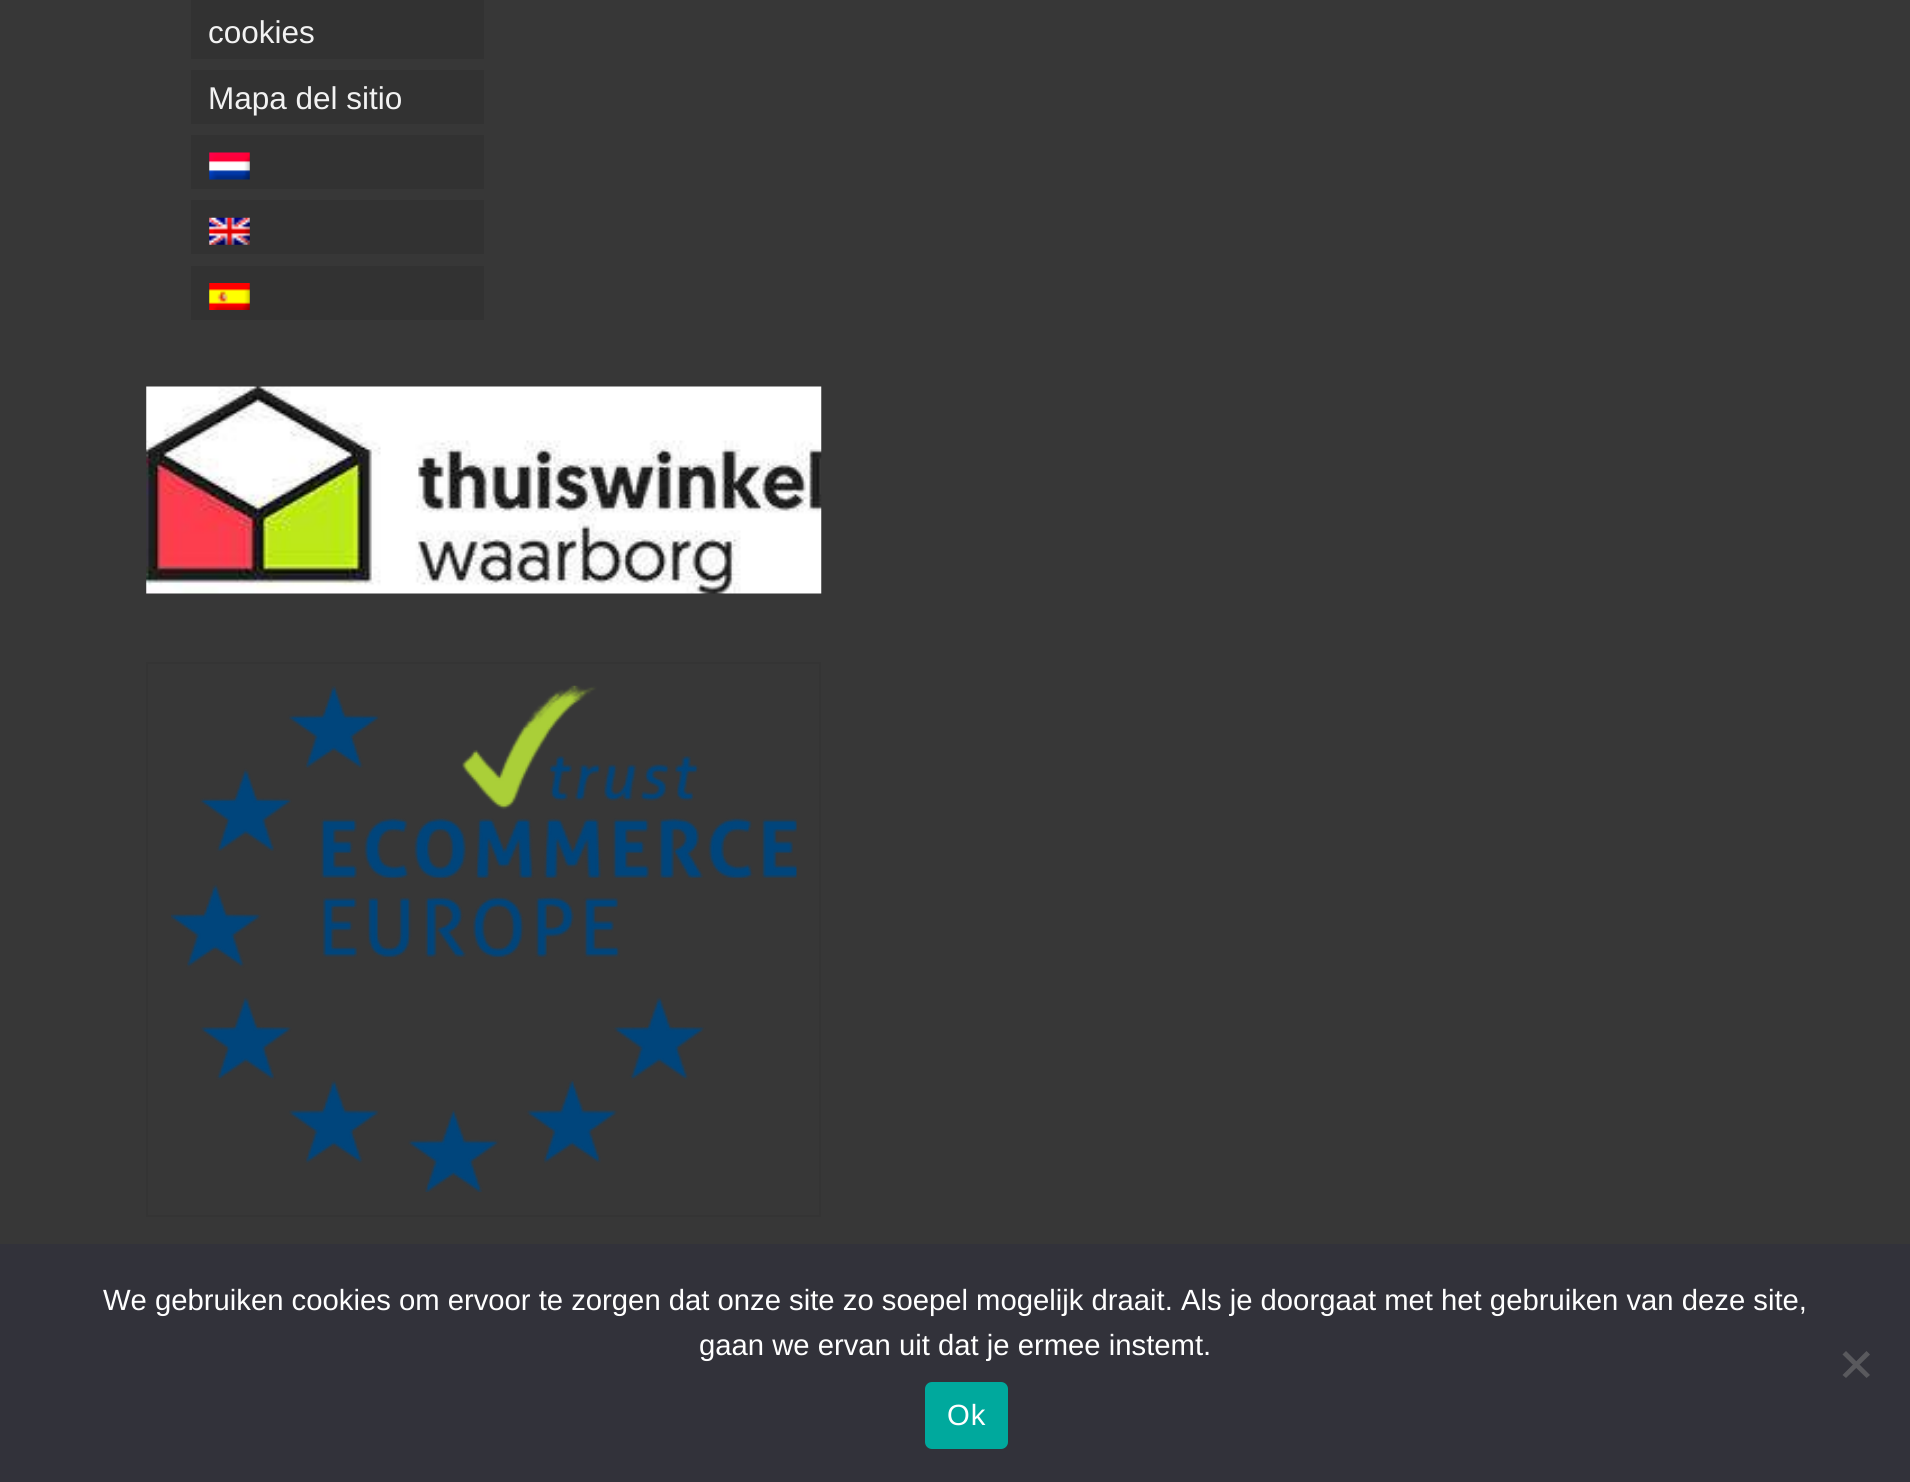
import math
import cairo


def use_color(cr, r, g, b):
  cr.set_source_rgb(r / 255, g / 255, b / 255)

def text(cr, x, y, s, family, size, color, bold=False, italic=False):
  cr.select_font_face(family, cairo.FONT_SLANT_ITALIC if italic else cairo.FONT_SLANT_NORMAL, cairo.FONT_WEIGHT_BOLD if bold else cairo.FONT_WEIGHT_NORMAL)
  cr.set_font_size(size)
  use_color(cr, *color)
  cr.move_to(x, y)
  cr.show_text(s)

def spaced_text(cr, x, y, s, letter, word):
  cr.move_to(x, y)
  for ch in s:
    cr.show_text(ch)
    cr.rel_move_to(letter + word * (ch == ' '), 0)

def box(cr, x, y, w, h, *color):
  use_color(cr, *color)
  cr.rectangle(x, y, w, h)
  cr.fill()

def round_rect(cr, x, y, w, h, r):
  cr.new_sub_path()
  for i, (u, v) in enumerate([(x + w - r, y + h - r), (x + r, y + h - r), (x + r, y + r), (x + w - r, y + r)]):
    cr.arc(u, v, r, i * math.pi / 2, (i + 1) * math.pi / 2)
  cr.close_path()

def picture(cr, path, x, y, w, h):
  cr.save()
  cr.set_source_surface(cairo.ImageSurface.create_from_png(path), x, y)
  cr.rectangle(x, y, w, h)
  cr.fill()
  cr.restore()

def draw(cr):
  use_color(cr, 55, 55, 55)
  cr.paint()
  box(cr, 191, 0, 293, 59, 50, 50, 50)
  box(cr, 191, 70, 293, 54, 50, 50, 50)
  box(cr, 191, 135, 293, 54, 50, 50, 50)
  picture(cr, "img_01.png", 209, 152, 41, 28)
  box(cr, 191, 200, 293, 54, 50, 50, 50)
  picture(cr, "img_02.png", 209, 217, 41, 28)
  box(cr, 191, 266, 293, 54, 50, 50, 50)
  picture(cr, "img_03.png", 209, 283, 41, 27)
  picture(cr, "img_04.png", 146, 386, 676, 208)
  cr.rectangle(147, 663, 673, 553)
  use_color(cr, 52, 52, 52)
  cr.stroke()
  picture(cr, "img_05.png", 171, 685, 626, 507)
  box(cr, 0, 1244, 1910, 238, 50, 50, 58)
  use_color(cr, 89, 89, 93)
  cr.new_path()
  cr.move_to(1866.5, 1351)
  cr.line_to(1870, 1354.5)
  cr.line_to(1846, 1378)
  cr.line_to(1842.5, 1375)
  cr.close_path()
  cr.fill()
  cr.new_path()
  cr.move_to(1842.5, 1354.5)
  cr.line_to(1846, 1351)
  cr.line_to(1870, 1375)
  cr.line_to(1866.5, 1378)
  cr.close_path()
  cr.fill()
  use_color(cr, 0, 169, 157)
  round_rect(cr, 925, 1382, 83, 67, 7)
  cr.fill()
  text(cr, 208, 43, "cookies", "Liberation Sans", 31.5, (242, 242, 242))
  text(cr, 208, 109, "Mapa del sitio", "Liberation Sans", 31.5, (242, 242, 242))
  text(cr, 103, 1310, "We gebruiken cookies om ervoor te zorgen dat onze site zo soepel mogelijk draait. Als je doorgaat met het gebruiken van deze site,", "Liberation Sans", 29.25, (255, 255, 255))
  text(cr, 699, 1355, "gaan we ervan uit dat je ermee instemt.", "Liberation Sans", 29.25, (255, 255, 255))
  spaced_text(cr, 947, 1425, "Ok", 1, 0)


surface = cairo.ImageSurface(cairo.FORMAT_RGB24, 1910, 1482)
cr = cairo.Context(surface)
options = cairo.FontOptions()
options.set_hint_metrics(cairo.HINT_METRICS_OFF)
options.set_hint_style(cairo.HINT_STYLE_NONE)
cr.set_font_options(options)
cr.set_miter_limit(4)
draw(cr)
surface.write_to_png("out.png")
